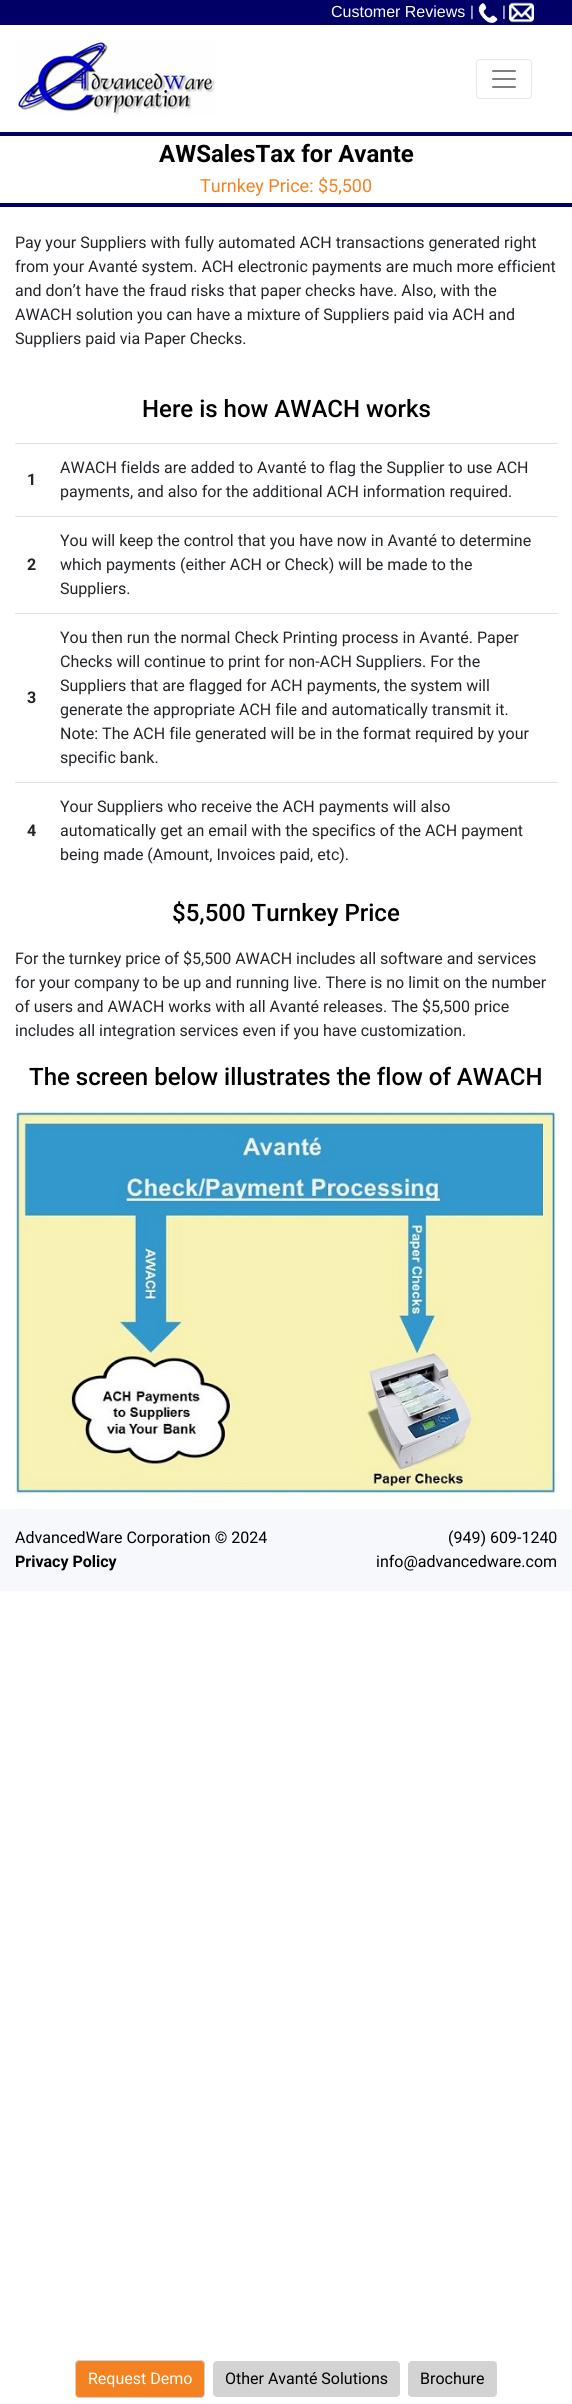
import math
import cairo


def use_color(cr, r, g, b):
  cr.set_source_rgb(r / 255, g / 255, b / 255)

def text(cr, x, y, s, family, size, color, bold=False, italic=False):
  cr.select_font_face(family, cairo.FONT_SLANT_ITALIC if italic else cairo.FONT_SLANT_NORMAL, cairo.FONT_WEIGHT_BOLD if bold else cairo.FONT_WEIGHT_NORMAL)
  cr.set_font_size(size)
  use_color(cr, *color)
  cr.move_to(x, y)
  cr.show_text(s)

def box(cr, x, y, w, h, *color):
  use_color(cr, *color)
  cr.rectangle(x, y, w, h)
  cr.fill()

def round_rect(cr, x, y, w, h, r):
  cr.new_sub_path()
  for i, (u, v) in enumerate([(x + w - r, y + h - r), (x + r, y + h - r), (x + r, y + r), (x + w - r, y + r)]):
    cr.arc(u, v, r, i * math.pi / 2, (i + 1) * math.pi / 2)
  cr.close_path()

def picture(cr, path, x, y, w, h):
  cr.save()
  cr.set_source_surface(cairo.ImageSurface.create_from_png(path), x, y)
  cr.rectangle(x, y, w, h)
  cr.fill()
  cr.restore()

def draw(cr):
  use_color(cr, 255, 255, 255)
  cr.paint()
  box(cr, 0, 0, 572, 25, 0, 0, 102)
  picture(cr, "img_01.png", 478, 3, 20, 20)
  picture(cr, "img_02.png", 509, 2, 25, 21)
  picture(cr, "img_03.png", 17, 40, 198, 76)
  round_rect(cr, 476.5, 59.5, 55, 39, 3.5)
  use_color(cr, 230, 230, 230)
  cr.set_line_width(1)
  cr.stroke()
  picture(cr, "img_04.png", 492, 70, 24, 18)
  box(cr, 0, 132, 572, 4, 0, 0, 102)
  box(cr, 0, 203, 572, 4, 0, 0, 102)
  box(cr, 15, 443, 543, 1, 222, 226, 230)
  box(cr, 15, 516, 543, 1, 222, 226, 230)
  box(cr, 15, 613, 543, 1, 222, 226, 230)
  box(cr, 15, 782, 543, 1, 222, 226, 230)
  picture(cr, "img_05.png", 15, 1111, 542, 383)
  use_color(cr, 245, 130, 32)
  round_rect(cr, 75.5, 2360.5, 129, 37, 3.5)
  cr.fill_preserve()
  use_color(cr, 211, 211, 211)
  cr.stroke()
  round_rect(cr, 213, 2361, 187, 36, 4)
  cr.fill()
  round_rect(cr, 408, 2361, 89, 36, 4)
  cr.fill()
  box(cr, 0, 1509, 572, 82, 247, 248, 252)
  text(cr, 331, 17, "Customer Reviews", "Liberation Sans", 16, (255, 255, 255))
  text(cr, 470, 17, "|", "Roboto", 16, (255, 255, 255))
  text(cr, 502, 17, "|", "Roboto", 16, (255, 255, 255))
  text(cr, 159, 162, "AWSalesTax for Avante", "Roboto", 24, (0, 0, 0), bold=True)
  text(cr, 200, 192, "Turnkey Price: $5,500", "Roboto", 18, (245, 130, 32))
  text(cr, 15, 248, "Pay your Suppliers with fully automated ACH transactions generated right", "Roboto", 16, (33, 37, 41))
  text(cr, 15, 272, "from your Avanté system. ACH electronic payments are much more efficient", "Roboto", 16, (33, 37, 41))
  text(cr, 15, 296, "and don’t have the fraud risks that paper checks have. Also, with the", "Roboto", 16, (33, 37, 41))
  text(cr, 15, 320, "AWACH solution you can have a mixture of Suppliers paid via ACH and", "Roboto", 16, (33, 37, 41))
  text(cr, 15, 344, "Suppliers paid via Paper Checks.", "Roboto", 16, (33, 37, 41))
  text(cr, 142, 417, "Here is how AWACH works", "Roboto Medium", 24, (0, 0, 0))
  text(cr, 27, 485, "1", "Roboto", 16, (33, 37, 41), bold=True)
  text(cr, 60, 473, "AWACH fields are added to Avanté to flag the Supplier to use ACH", "Roboto", 16, (33, 37, 41))
  text(cr, 60, 497, "payments, and also for the additional ACH information required.", "Roboto", 16, (33, 37, 41))
  text(cr, 27, 570, "2", "Roboto", 16, (33, 37, 41), bold=True)
  text(cr, 60, 546, "You will keep the control that you have now in Avanté to determine", "Roboto", 16, (33, 37, 41))
  text(cr, 60, 570, "which payments (either ACH or Check) will be made to the", "Roboto", 16, (33, 37, 41))
  text(cr, 60, 594, "Suppliers.", "Roboto", 16, (33, 37, 41))
  text(cr, 27, 703, "3", "Roboto", 16, (33, 37, 41), bold=True)
  text(cr, 60, 643, "You then run the normal Check Printing process in Avanté. Paper", "Roboto", 16, (33, 37, 41))
  text(cr, 60, 667, "Checks will continue to print for non-ACH Suppliers. For the", "Roboto", 16, (33, 37, 41))
  text(cr, 60, 691, "Suppliers that are flagged for ACH payments, the system will", "Roboto", 16, (33, 37, 41))
  text(cr, 60, 715, "generate the appropriate ACH file and automatically transmit it.", "Roboto", 16, (33, 37, 41))
  text(cr, 60, 739, "Note: The ACH file generated will be in the format required by your", "Roboto", 16, (33, 37, 41))
  text(cr, 60, 763, "specific bank.", "Roboto", 16, (33, 37, 41))
  text(cr, 27, 836, "4", "Roboto", 16, (33, 37, 41), bold=True)
  text(cr, 60, 812, "Your Suppliers who receive the ACH payments will also", "Roboto", 16, (33, 37, 41))
  text(cr, 60, 836, "automatically get an email with the specifics of the ACH payment", "Roboto", 16, (33, 37, 41))
  text(cr, 60, 860, "being made (Amount, Invoices paid, etc).", "Roboto", 16, (33, 37, 41))
  text(cr, 172, 921, "$5,500 Turnkey Price", "Roboto Medium", 24, (0, 0, 0))
  text(cr, 15, 964, "For the turnkey price of $5,500 AWACH includes all software and services", "Roboto", 16, (33, 37, 41))
  text(cr, 15, 988, "for your company to be up and running live. There is no limit on the number", "Roboto", 16, (33, 37, 41))
  text(cr, 15, 1012, "of users and AWACH works with all Avanté releases. The $5,500 price", "Roboto", 16, (33, 37, 41))
  text(cr, 15, 1036, "includes all integration services even if you have customization.", "Roboto", 16, (33, 37, 41))
  text(cr, 29, 1085, "The screen below illustrates the flow of AWACH", "Roboto Medium", 24, (0, 0, 0))
  text(cr, 88, 2384, "Request Demo", "Roboto", 16, (255, 255, 255))
  text(cr, 225, 2384, "Other Avanté Solutions", "Roboto", 16, (0, 0, 0))
  text(cr, 420, 2384, "Brochure", "Roboto", 16, (0, 0, 0))
  text(cr, 15, 1543, "AdvancedWare Corporation © 2024", "Roboto", 16, (0, 0, 0))
  text(cr, 15, 1567, "Privacy Policy", "Roboto", 16, (0, 0, 0), bold=True)
  text(cr, 448, 1543, "(949) 609-1240", "Roboto", 16, (0, 0, 0))
  text(cr, 376, 1567, "info@advancedware.com", "Roboto", 16, (0, 0, 0))


surface = cairo.ImageSurface(cairo.FORMAT_RGB24, 572, 2404)
cr = cairo.Context(surface)
options = cairo.FontOptions()
options.set_hint_metrics(cairo.HINT_METRICS_OFF)
options.set_hint_style(cairo.HINT_STYLE_NONE)
cr.set_font_options(options)
cr.set_miter_limit(4)
draw(cr)
surface.write_to_png("out.png")
